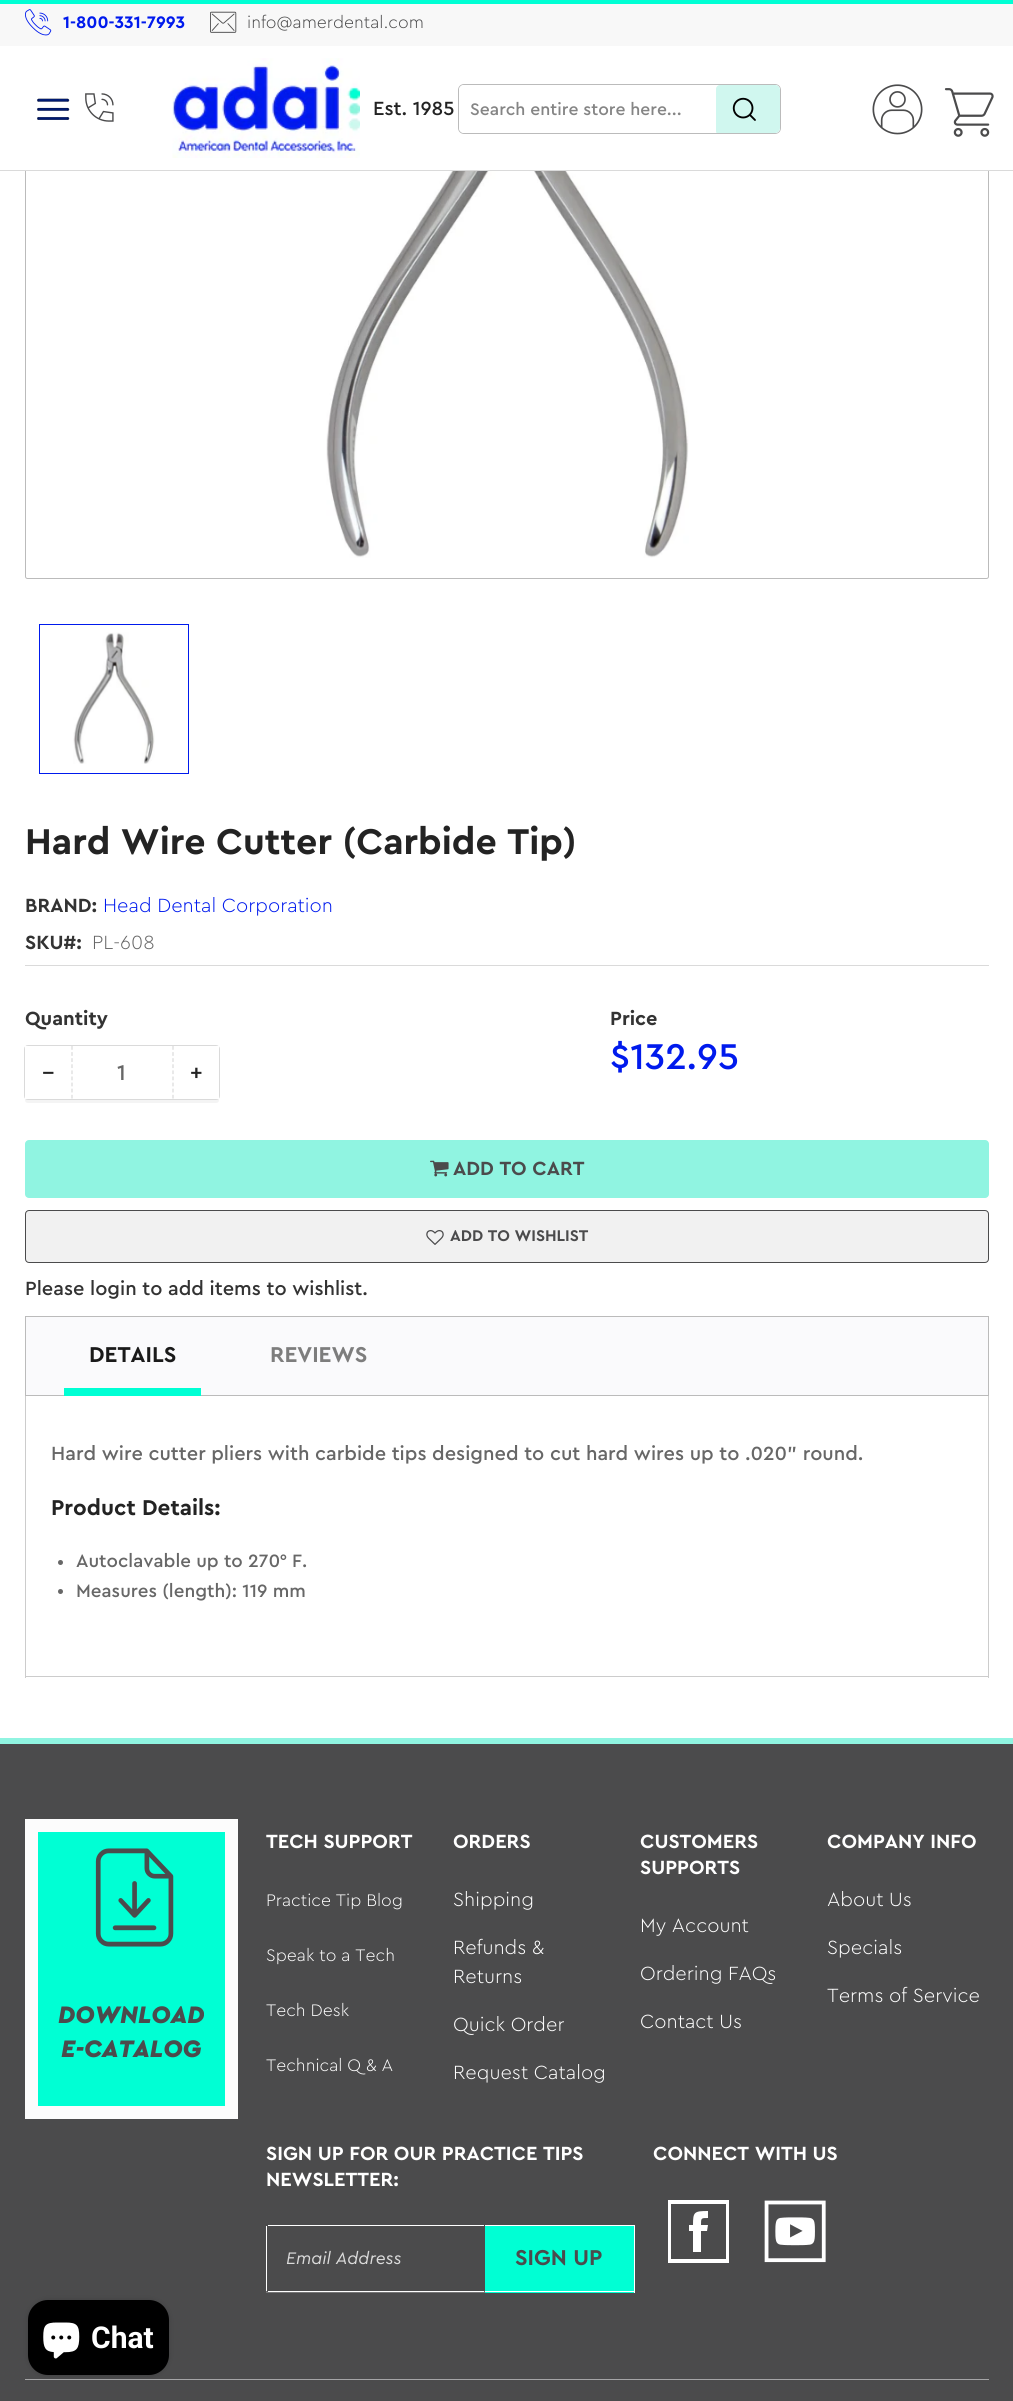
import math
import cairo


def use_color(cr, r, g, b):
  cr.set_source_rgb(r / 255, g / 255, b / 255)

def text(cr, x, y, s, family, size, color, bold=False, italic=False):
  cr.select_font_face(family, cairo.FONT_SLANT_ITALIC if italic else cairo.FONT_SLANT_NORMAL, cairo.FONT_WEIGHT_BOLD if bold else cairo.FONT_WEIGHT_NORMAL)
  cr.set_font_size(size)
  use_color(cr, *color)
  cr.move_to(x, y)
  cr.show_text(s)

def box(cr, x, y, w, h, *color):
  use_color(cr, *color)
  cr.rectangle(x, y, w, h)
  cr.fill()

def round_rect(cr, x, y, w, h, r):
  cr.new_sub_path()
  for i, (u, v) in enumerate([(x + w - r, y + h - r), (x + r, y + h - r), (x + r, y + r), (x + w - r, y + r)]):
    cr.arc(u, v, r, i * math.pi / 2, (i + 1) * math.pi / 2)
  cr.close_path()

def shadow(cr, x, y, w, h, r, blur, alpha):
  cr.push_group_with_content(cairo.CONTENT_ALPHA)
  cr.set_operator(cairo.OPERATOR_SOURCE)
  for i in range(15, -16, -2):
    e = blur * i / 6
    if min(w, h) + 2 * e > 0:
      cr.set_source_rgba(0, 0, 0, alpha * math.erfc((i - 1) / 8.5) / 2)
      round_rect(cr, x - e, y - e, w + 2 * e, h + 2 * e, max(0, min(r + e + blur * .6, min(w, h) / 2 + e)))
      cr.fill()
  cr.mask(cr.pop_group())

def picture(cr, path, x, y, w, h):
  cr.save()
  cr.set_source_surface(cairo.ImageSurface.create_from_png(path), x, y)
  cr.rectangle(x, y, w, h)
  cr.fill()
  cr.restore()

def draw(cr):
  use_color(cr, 255, 255, 255)
  cr.paint()
  round_rect(cr, 25.5, -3.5, 963, 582, 2)
  use_color(cr, 187, 187, 187)
  cr.set_line_width(1)
  cr.stroke()
  box(cr, 0, 4, 1013, 42, 248, 248, 248)
  box(cr, 0, 0, 1013, 4, 0, 255, 212)
  picture(cr, "img_01.png", 25, 9, 27, 27)
  picture(cr, "img_02.png", 210, 11, 27, 22)
  box(cr, 25, 46, 964, 124, 255, 255, 255)
  box(cr, 0, 170, 1013, 1, 218, 218, 218)
  picture(cr, "img_03.png", 37, 98, 33, 22)
  picture(cr, "img_04.png", 85, 93, 29, 29)
  picture(cr, "img_05.png", 172, 58, 188, 100)
  round_rect(cr, 458.5, 84.5, 322, 49, 5.5)
  use_color(cr, 187, 187, 187)
  cr.stroke()
  cr.save()
  round_rect(cr, 459, 85, 321, 48, 5)
  cr.clip()
  use_color(cr, 255, 255, 255)
  round_rect(cr, 459, 85, 321, 50, 2.5)
  cr.fill()
  use_color(cr, 208, 247, 239)
  round_rect(cr, 716, 85, 64, 50, 4)
  cr.fill()
  cr.restore()
  picture(cr, "img_06.png", 732, 97, 24, 24)
  picture(cr, "img_07.png", 872, 84, 51, 51)
  picture(cr, "img_08.png", 944, 88, 50, 49)
  picture(cr, "img_09.png", 326, 171, 363, 387)
  cr.rectangle(39.5, 624.5, 149, 149)
  use_color(cr, 0, 26, 237)
  cr.stroke()
  picture(cr, "img_10.png", 73, 632, 82, 132)
  box(cr, 25, 965, 964, 1, 218, 218, 218)
  use_color(cr, 244, 244, 244)
  cr.new_path()
  cr.move_to(25, 1096)
  cr.line_to(25, 1100)
  cr.curve_to(25, 1102, 26, 1103, 28, 1103)
  cr.line_to(216, 1103)
  cr.curve_to(218, 1103, 219, 1102, 219, 1100)
  cr.line_to(219, 1051)
  cr.line_to(219, 1096)
  cr.curve_to(219, 1098, 218, 1099, 216, 1099)
  cr.line_to(28, 1099)
  cr.curve_to(26, 1099, 25, 1098, 25, 1096)
  cr.close_path()
  cr.fill()
  round_rect(cr, 24.5, 1045.5, 195, 54, 3.5)
  use_color(cr, 218, 218, 218)
  cr.stroke()
  box(cr, 25, 1046, 3, 53, 255, 255, 255)
  cr.new_path()
  cr.move_to(173, 1046)
  cr.line_to(173, 1099)
  use_color(cr, 218, 218, 218)
  cr.set_line_width(1.2)
  cr.set_dash([3.75, 2.35])
  cr.stroke()
  cr.new_path()
  cr.move_to(72, 1046)
  cr.line_to(72, 1099)
  cr.stroke()
  box(cr, 216, 1046, 3, 53, 255, 255, 255)
  use_color(cr, 144, 244, 225)
  round_rect(cr, 25, 1140, 964, 58, 4)
  cr.fill()
  picture(cr, "img_11.png", 430, 1160, 19, 17)
  use_color(cr, 241, 241, 241)
  round_rect(cr, 25.5, 1210.5, 963, 52, 3.5)
  cr.fill_preserve()
  use_color(cr, 75, 75, 76)
  cr.set_line_width(1)
  cr.set_dash([])
  cr.stroke()
  picture(cr, "img_12.png", 426, 1230, 18, 15)
  use_color(cr, 250, 250, 252)
  cr.rectangle(25.5, 1316.5, 963, 79)
  cr.fill_preserve()
  use_color(cr, 187, 187, 187)
  cr.stroke()
  box(cr, 64, 1388, 137, 8, 0, 255, 212)
  box(cr, 988, 1396, 1, 282, 204, 204, 204)
  box(cr, 25, 1676, 964, 1, 204, 204, 204)
  box(cr, 25, 1396, 1, 282, 204, 204, 204)
  use_color(cr, 103, 103, 103)
  cr.arc(60.5, 1562.5, 2.5, 0, 2 * math.pi)
  cr.fill()
  cr.arc(60.5, 1591.5, 2.5, 0, 2 * math.pi)
  cr.fill()
  box(cr, 0, 1744, 1013, 657, 75, 75, 76)
  box(cr, 0, 1738, 1013, 6, 144, 244, 225)
  use_color(cr, 0, 255, 212)
  cr.rectangle(31.5, 1825.5, 200, 287)
  cr.fill_preserve()
  use_color(cr, 252, 252, 252)
  cr.set_line_width(13)
  cr.stroke()
  picture(cr, "img_13.png", 95, 1848, 79, 99)
  cr.save()
  cr.rectangle(266, 2225, 369, 68)
  cr.clip()
  use_color(cr, 118, 118, 119)
  cr.new_path()
  cr.move_to(266, 2229)
  cr.line_to(266, 2292)
  cr.curve_to(266, 2294, 267, 2295, 268, 2295)
  cr.line_to(482, 2295)
  cr.curve_to(484, 2295, 485, 2294, 485, 2292)
  cr.line_to(485, 2290)
  cr.curve_to(485, 2291, 484, 2292, 482, 2292)
  cr.line_to(269, 2292)
  cr.curve_to(267, 2292, 266, 2291, 266, 2290)
  cr.close_path()
  cr.fill()
  cr.restore()
  box(cr, 268, 2225, 216, 1, 255, 255, 255)
  box(cr, 268, 2291, 216, 1, 255, 255, 255)
  box(cr, 266, 2226, 1, 65, 255, 255, 255)
  box(cr, 485, 2226, 149, 67, 0, 255, 212)
  box(cr, 485, 2225, 150, 1, 255, 255, 255)
  box(cr, 634, 2225, 1, 68, 255, 255, 255)
  box(cr, 485, 2291, 150, 1, 255, 255, 255)
  cr.new_path()
  cr.move_to(693, 2252)
  cr.line_to(701, 2252)
  cr.line_to(701, 2231)
  cr.line_to(707, 2231)
  cr.line_to(708, 2225)
  cr.line_to(701, 2225)
  cr.curve_to(701, 2218, 701, 2218, 708, 2218)
  cr.line_to(708, 2211)
  cr.curve_to(694, 2211, 693, 2212, 693, 2225)
  cr.line_to(689, 2225)
  cr.line_to(689, 2231)
  cr.line_to(693, 2231)
  cr.close_path()
  cr.move_to(668, 2200)
  cr.line_to(668, 2263)
  cr.line_to(729, 2263)
  cr.line_to(729, 2200)
  cr.close_path()
  cr.move_to(726, 2259)
  cr.line_to(671, 2259)
  cr.line_to(671, 2204)
  cr.line_to(726, 2204)
  cr.close_path()
  cr.fill()
  picture(cr, "img_14.png", 764, 2200, 62, 63)
  box(cr, 25, 2379, 964, 1, 165, 165, 166)
  use_color(cr, 0, 0, 0)
  shadow(cr, 28, 2300, 141, 75, 20, 3, 0.15)
  use_color(cr, 0, 0, 0)
  round_rect(cr, 28, 2300, 141, 75, 20)
  cr.fill()
  picture(cr, "img_15.png", 43, 2322, 37, 37)
  text(cr, 63, 28, "1-800-331-7993", "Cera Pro", 17.5, (0, 26, 237), bold=True)
  text(cr, 247, 28, "info@amerdental.com", "Cera Pro Light", 17.5, (75, 75, 76))
  text(cr, 373, 115, "Est. 1985", "Cera Pro Medium", 20, (35, 35, 35))
  text(cr, 470, 115, "Search entire store here...", "Cera Pro Medium", 17.5, (133, 133, 133))
  text(cr, 25, 854, "Hard Wire Cutter (Carbide Tip)", "Cera Pro", 37.5, (35, 35, 35), bold=True)
  text(cr, 25, 912, "BRAND:", "Cera Pro", 20, (51, 51, 51), bold=True)
  text(cr, 103, 912, "Head Dental Corporation", "Cera Pro Light", 20, (0, 26, 237))
  text(cr, 25, 949, "SKU#:", "Cera Pro", 20, (51, 51, 51), bold=True)
  text(cr, 92, 949, "PL-608", "Cera Pro Light", 20, (103, 103, 103))
  text(cr, 25, 1025, "Quantity", "Cera Pro", 20, (51, 51, 51), bold=True)
  text(cr, 42, 1080, "−", "Cera Pro Medium", 22.5, (35, 35, 35))
  text(cr, 117, 1080, "1", "Cera Pro Medium", 22.5, (103, 103, 103))
  text(cr, 190, 1080, "+", "Cera Pro Medium", 22.5, (35, 35, 35))
  text(cr, 610, 1025, "Price", "Cera Pro", 20, (51, 51, 51), bold=True)
  text(cr, 610, 1069, "$132.95", "Cera Pro Medium", 37.5, (0, 26, 237))
  text(cr, 453, 1175, "ADD TO CART", "Cera Pro", 20, (75, 75, 76), bold=True)
  text(cr, 450, 1241, "ADD TO WISHLIST", "Cera Pro", 16.25, (75, 75, 76), bold=True)
  text(cr, 25, 1295, "Please login to add items to wishlist.", "Cera Pro Medium", 20, (51, 51, 51))
  text(cr, 89, 1362, "DETAILS", "Cera Pro", 22.5, (26, 26, 26), bold=True)
  text(cr, 270, 1362, "REVIEWS", "Cera Pro", 22.5, (125, 125, 125), bold=True)
  text(cr, 51, 1460, "Hard wire cutter pliers with carbide tips designed to cut hard wires up to .020\" round.", "Cera Pro Medium", 20, (103, 103, 103))
  text(cr, 51, 1515, "Product Details:", "Cera Pro", 22.5, (35, 35, 35), bold=True)
  text(cr, 76, 1567, "Autoclavable up to 270° F.", "Cera Pro Medium", 18.75, (103, 103, 103))
  text(cr, 76, 1597, "Measures (length): 119 mm", "Cera Pro Medium", 18.75, (103, 103, 103))
  text(cr, 58, 2023, "DOWNLOAD", "Cera Pro Black", 25, (75, 75, 76), italic=True)
  text(cr, 61, 2057, "E-CATALOG", "Cera Pro Black", 25, (75, 75, 76), italic=True)
  text(cr, 266, 1848, "TECH SUPPORT", "Cera Pro", 20, (255, 255, 255), bold=True)
  text(cr, 266, 1906, "Practice Tip Blog", "Cera Pro Light", 17.5, (255, 255, 255))
  text(cr, 266, 1961, "Speak to a Tech", "Cera Pro Light", 17.5, (255, 255, 255))
  text(cr, 266, 2016, "Tech Desk", "Cera Pro Light", 17.5, (255, 255, 255))
  text(cr, 266, 2071, "Technical Q & A", "Cera Pro Light", 17.5, (255, 255, 255))
  text(cr, 453, 1848, "ORDERS", "Cera Pro", 20, (255, 255, 255), bold=True)
  text(cr, 453, 1906, "Shipping", "Cera Pro Light", 20, (255, 255, 255))
  text(cr, 453, 1954, "Refunds &", "Cera Pro Light", 20, (255, 255, 255))
  text(cr, 453, 1983, "Returns", "Cera Pro Light", 20, (255, 255, 255))
  text(cr, 453, 2031, "Quick Order", "Cera Pro Light", 20, (255, 255, 255))
  text(cr, 453, 2079, "Request Catalog", "Cera Pro Light", 20, (255, 255, 255))
  text(cr, 640, 1848, "CUSTOMERS", "Cera Pro", 20, (255, 255, 255), bold=True)
  text(cr, 640, 1874, "SUPPORTS", "Cera Pro", 20, (255, 255, 255), bold=True)
  text(cr, 640, 1932, "My Account", "Cera Pro Light", 20, (255, 255, 255))
  text(cr, 640, 1980, "Ordering FAQs", "Cera Pro Light", 20, (255, 255, 255))
  text(cr, 640, 2028, "Contact Us", "Cera Pro Light", 20, (255, 255, 255))
  text(cr, 827, 1848, "COMPANY INFO", "Cera Pro", 20, (255, 255, 255), bold=True)
  text(cr, 827, 1906, "About Us", "Cera Pro Light", 20, (255, 255, 255))
  text(cr, 827, 1954, "Specials", "Cera Pro Light", 20, (255, 255, 255))
  text(cr, 827, 2002, "Terms of Service", "Cera Pro Light", 20, (255, 255, 255))
  text(cr, 266, 2160, "SIGN UP FOR OUR PRACTICE TIPS", "Cera Pro", 20, (255, 255, 255), bold=True)
  text(cr, 266, 2186, "NEWSLETTER:", "Cera Pro", 20, (255, 255, 255), bold=True)
  text(cr, 286, 2264, "Email Address", "Cera Pro", 17.5, (219, 219, 219), italic=True)
  text(cr, 515, 2265, "SIGN UP", "Cera Pro", 22.5, (75, 75, 76), bold=True)
  text(cr, 653, 2160, "CONNECT WITH US", "Cera Pro", 20, (255, 255, 255), bold=True)
  text(cr, 91, 2348, "Chat", "Roboto", 30, (255, 255, 255), bold=True)


surface = cairo.ImageSurface(cairo.FORMAT_RGB24, 1013, 2401)
cr = cairo.Context(surface)
options = cairo.FontOptions()
options.set_hint_metrics(cairo.HINT_METRICS_OFF)
options.set_hint_style(cairo.HINT_STYLE_NONE)
cr.set_font_options(options)
cr.set_miter_limit(4)
draw(cr)
surface.write_to_png("out.png")
